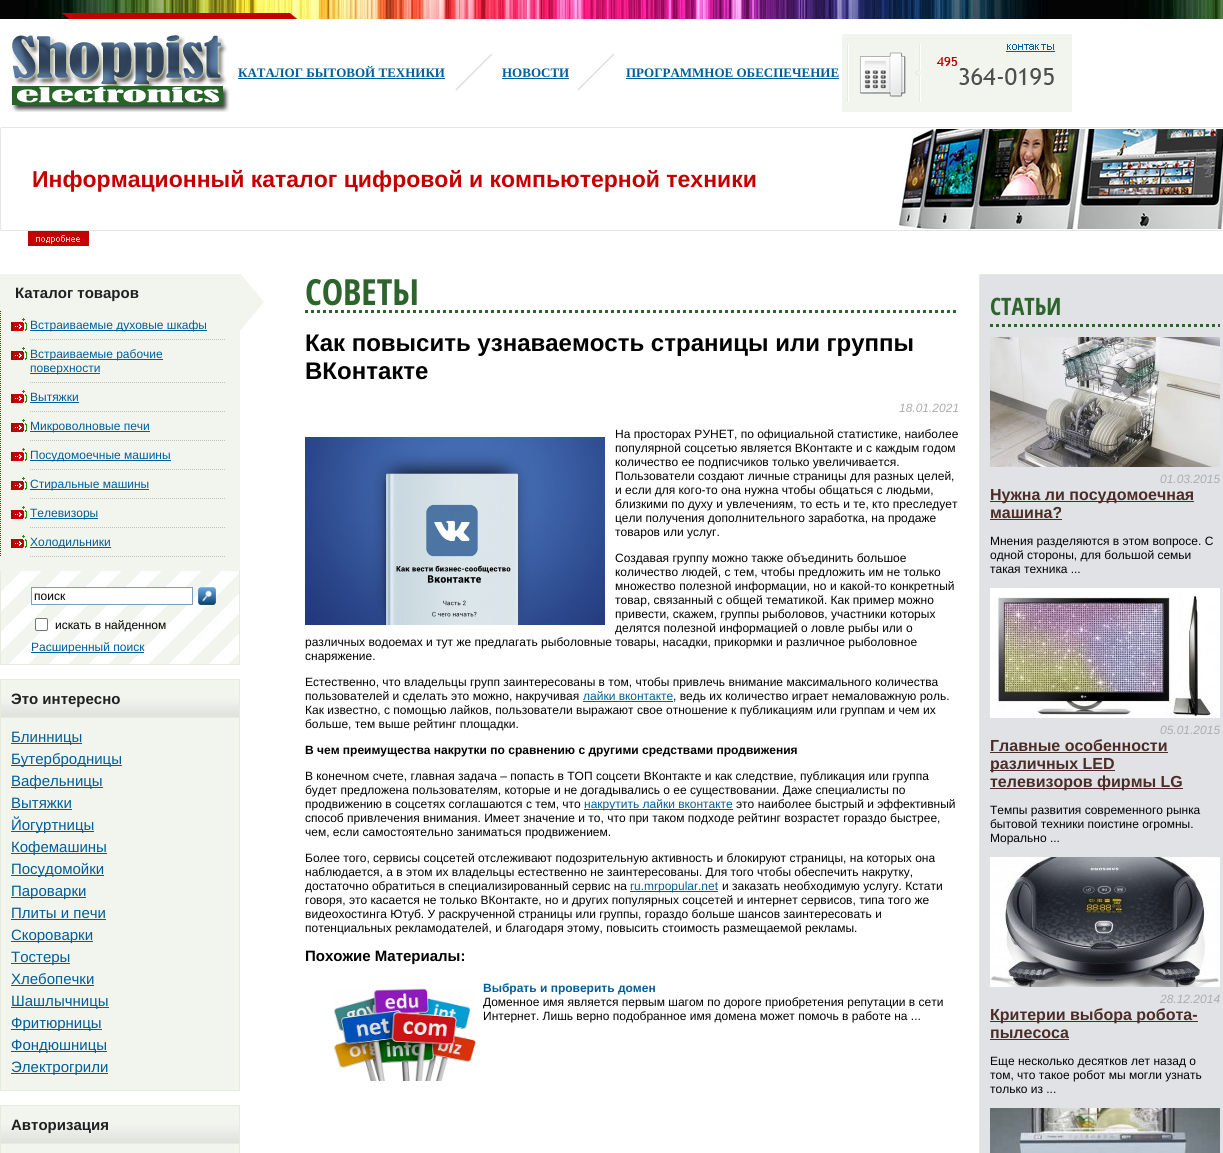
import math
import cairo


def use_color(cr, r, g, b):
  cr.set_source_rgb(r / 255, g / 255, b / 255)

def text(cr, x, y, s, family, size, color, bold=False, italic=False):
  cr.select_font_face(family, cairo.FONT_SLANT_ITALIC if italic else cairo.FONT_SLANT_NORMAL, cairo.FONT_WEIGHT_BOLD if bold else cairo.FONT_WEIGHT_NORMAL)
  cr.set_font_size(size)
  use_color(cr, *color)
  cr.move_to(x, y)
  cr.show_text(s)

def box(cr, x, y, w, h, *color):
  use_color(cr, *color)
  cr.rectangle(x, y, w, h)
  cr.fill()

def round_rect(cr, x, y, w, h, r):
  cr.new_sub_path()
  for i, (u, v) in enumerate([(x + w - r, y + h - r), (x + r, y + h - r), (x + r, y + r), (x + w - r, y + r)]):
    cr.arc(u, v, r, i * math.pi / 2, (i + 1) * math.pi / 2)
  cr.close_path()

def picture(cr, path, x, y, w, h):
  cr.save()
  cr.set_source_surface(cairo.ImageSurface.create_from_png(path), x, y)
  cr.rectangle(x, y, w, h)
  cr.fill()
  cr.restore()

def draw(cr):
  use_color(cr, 255, 255, 255)
  cr.paint()
  picture(cr, "img_01.png", 0, 0, 1223, 19)
  picture(cr, "img_02.png", 62, 13, 235, 6)
  picture(cr, "img_03.png", 11, 35, 219, 77)
  box(cr, 238, 78, 207, 1, 0, 94, 154)
  picture(cr, "img_04.png", 453, 53, 40, 38)
  box(cr, 502, 78, 67, 1, 0, 94, 154)
  picture(cr, "img_04.png", 575, 53, 40, 38)
  box(cr, 626, 78, 213, 1, 0, 94, 154)
  picture(cr, "img_05.png", 842, 34, 230, 78)
  round_rect(cr, 0.5, 127.5, 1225, 103, 1.5)
  use_color(cr, 229, 229, 229)
  cr.set_line_width(1)
  cr.stroke()
  picture(cr, "img_06.png", 899, 129, 324, 100)
  picture(cr, "img_07.png", 28, 231, 61, 15)
  box(cr, 0, 274, 240, 297, 242, 245, 238)
  cr.new_path()
  cr.move_to(0.5, 311)
  cr.line_to(0.5, 557)
  use_color(cr, 197, 0, 0)
  cr.set_dash([1, 1])
  cr.stroke()
  picture(cr, "img_08.png", 11, 318, 16, 13)
  cr.new_path()
  cr.move_to(30, 339.5)
  cr.line_to(225, 339.5)
  use_color(cr, 192, 192, 192)
  cr.stroke()
  box(cr, 30, 330, 177, 1, 0, 94, 154)
  picture(cr, "img_08.png", 11, 347, 16, 13)
  cr.new_path()
  cr.move_to(30, 382.5)
  cr.line_to(225, 382.5)
  use_color(cr, 192, 192, 192)
  cr.stroke()
  box(cr, 30, 359, 133, 1, 0, 94, 154)
  box(cr, 30, 373, 70, 1, 0, 94, 154)
  picture(cr, "img_08.png", 11, 390, 16, 13)
  cr.new_path()
  cr.move_to(30, 411.5)
  cr.line_to(225, 411.5)
  use_color(cr, 192, 192, 192)
  cr.stroke()
  box(cr, 30, 402, 49, 1, 0, 94, 154)
  picture(cr, "img_08.png", 11, 419, 16, 13)
  cr.new_path()
  cr.move_to(30, 440.5)
  cr.line_to(225, 440.5)
  use_color(cr, 192, 192, 192)
  cr.stroke()
  box(cr, 30, 431, 120, 1, 0, 94, 154)
  picture(cr, "img_08.png", 11, 448, 16, 13)
  cr.new_path()
  cr.move_to(30, 469.5)
  cr.line_to(225, 469.5)
  use_color(cr, 192, 192, 192)
  cr.stroke()
  box(cr, 30, 460, 141, 1, 0, 94, 154)
  picture(cr, "img_08.png", 11, 477, 16, 13)
  cr.new_path()
  cr.move_to(30, 498.5)
  cr.line_to(225, 498.5)
  use_color(cr, 192, 192, 192)
  cr.stroke()
  box(cr, 30, 489, 119, 1, 0, 94, 154)
  picture(cr, "img_08.png", 11, 506, 16, 13)
  cr.new_path()
  cr.move_to(30, 527.5)
  cr.line_to(225, 527.5)
  use_color(cr, 192, 192, 192)
  cr.stroke()
  box(cr, 30, 518, 68, 1, 0, 94, 154)
  picture(cr, "img_08.png", 11, 535, 16, 13)
  cr.new_path()
  cr.move_to(30, 556.5)
  cr.line_to(225, 556.5)
  use_color(cr, 192, 192, 192)
  cr.stroke()
  box(cr, 30, 547, 81, 1, 0, 94, 154)
  picture(cr, "img_09.png", 1, 571, 238, 93)
  box(cr, 239, 571, 1, 94, 229, 235, 221)
  box(cr, 0, 664, 240, 1, 229, 235, 221)
  box(cr, 0, 571, 1, 94, 229, 235, 221)
  use_color(cr, 255, 255, 255)
  cr.rectangle(31.5, 587.5, 161, 17)
  cr.fill_preserve()
  use_color(cr, 127, 157, 185)
  cr.set_dash([])
  cr.stroke()
  picture(cr, "img_10.png", 198, 587, 18, 18)
  use_color(cr, 255, 255, 255)
  round_rect(cr, 35.5, 618.5, 12, 12, 1.5)
  cr.fill_preserve()
  use_color(cr, 118, 118, 118)
  cr.stroke()
  box(cr, 31, 652, 113, 1, 0, 94, 154)
  box(cr, 1, 680, 238, 16, 242, 245, 238)
  picture(cr, "img_11.png", 1, 696, 238, 21)
  box(cr, 0, 679, 240, 1, 229, 235, 221)
  box(cr, 239, 679, 1, 38, 229, 235, 221)
  box(cr, 0, 679, 1, 38, 229, 235, 221)
  use_color(cr, 242, 245, 238)
  cr.rectangle(0.5, 717.5, 239, 373)
  cr.fill_preserve()
  use_color(cr, 229, 235, 221)
  cr.stroke()
  box(cr, 11, 743, 71, 1, 0, 94, 154)
  box(cr, 11, 765, 111, 1, 0, 94, 154)
  box(cr, 11, 787, 92, 1, 0, 94, 154)
  box(cr, 11, 809, 61, 1, 0, 94, 154)
  box(cr, 11, 831, 83, 1, 0, 94, 154)
  box(cr, 11, 853, 96, 1, 0, 94, 154)
  box(cr, 11, 875, 93, 1, 0, 94, 154)
  box(cr, 11, 897, 75, 1, 0, 94, 154)
  box(cr, 11, 919, 95, 1, 0, 94, 154)
  box(cr, 11, 941, 82, 1, 0, 94, 154)
  box(cr, 11, 963, 59, 1, 0, 94, 154)
  box(cr, 11, 985, 83, 1, 0, 94, 154)
  box(cr, 11, 1007, 98, 1, 0, 94, 154)
  box(cr, 11, 1029, 91, 1, 0, 94, 154)
  box(cr, 11, 1051, 96, 1, 0, 94, 154)
  box(cr, 11, 1073, 97, 1, 0, 94, 154)
  box(cr, 1, 1106, 238, 16, 242, 245, 238)
  picture(cr, "img_11.png", 1, 1122, 238, 21)
  box(cr, 0, 1105, 240, 1, 229, 235, 221)
  box(cr, 239, 1105, 1, 38, 229, 235, 221)
  box(cr, 0, 1105, 1, 38, 229, 235, 221)
  use_color(cr, 242, 245, 238)
  cr.rectangle(0.5, 1143.5, 239, 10)
  cr.fill_preserve()
  use_color(cr, 229, 235, 221)
  cr.stroke()
  picture(cr, "img_12.png", 240, 274, 24, 56)
  cr.new_path()
  cr.move_to(305, 311.5)
  cr.line_to(959, 311.5)
  use_color(cr, 44, 100, 44)
  cr.set_line_width(3)
  cr.set_dash([3, 3])
  cr.stroke()
  picture(cr, "img_13.png", 305, 437, 300, 188)
  box(cr, 583, 701, 90, 1, 0, 94, 154)
  box(cr, 584, 809, 149, 1, 0, 94, 154)
  box(cr, 630, 891, 88, 1, 0, 94, 154)
  picture(cr, "img_14.png", 333, 988, 143, 93)
  use_color(cr, 225, 226, 229)
  cr.rectangle(979.5, 274.5, 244, 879)
  cr.fill_preserve()
  use_color(cr, 229, 235, 221)
  cr.set_line_width(1)
  cr.set_dash([])
  cr.stroke()
  cr.new_path()
  cr.move_to(990, 325.5)
  cr.line_to(1220, 325.5)
  use_color(cr, 44, 100, 44)
  cr.set_line_width(3)
  cr.set_dash([3, 3])
  cr.stroke()
  picture(cr, "img_15.png", 990, 337, 230, 130)
  box(cr, 990, 501, 204, 1, 75, 45, 39)
  box(cr, 990, 519, 72, 1, 75, 45, 39)
  picture(cr, "img_16.png", 990, 588, 230, 130)
  box(cr, 990, 752, 178, 1, 75, 45, 39)
  box(cr, 990, 770, 125, 1, 75, 45, 39)
  box(cr, 990, 788, 193, 1, 75, 45, 39)
  picture(cr, "img_17.png", 990, 857, 230, 130)
  box(cr, 990, 1021, 208, 1, 75, 45, 39)
  box(cr, 990, 1039, 79, 1, 75, 45, 39)
  picture(cr, "img_18.png", 990, 1108, 230, 45)
  text(cr, 238, 77, "КАТАЛОГ БЫТОВОЙ ТЕХНИКИ", "Liberation Serif", 13, (0, 94, 154), bold=True)
  text(cr, 502, 77, "НОВОСТИ", "Liberation Serif", 13, (0, 94, 154), bold=True)
  text(cr, 626, 77, "ПРОГРАММНОЕ ОБЕСПЕЧЕНИЕ", "Liberation Serif", 13, (0, 94, 154), bold=True)
  text(cr, 32, 187, "Информационный каталог цифровой и компьютерной техники", "Liberation Sans", 23, (197, 0, 0), bold=True)
  text(cr, 15, 298, "Каталог товаров", "Liberation Sans", 15, (32, 32, 32), bold=True)
  text(cr, 30, 329, "Встраиваемые духовые шкафы", "Liberation Sans", 12, (0, 94, 154))
  text(cr, 30, 358, "Встраиваемые рабочие", "Liberation Sans", 12, (0, 94, 154))
  text(cr, 30, 372, "поверхности", "Liberation Sans", 12, (0, 94, 154))
  text(cr, 30, 401, "Вытяжки", "Liberation Sans", 12, (0, 94, 154))
  text(cr, 30, 430, "Микроволновые печи", "Liberation Sans", 12, (0, 94, 154))
  text(cr, 30, 459, "Посудомоечные машины", "Liberation Sans", 12, (0, 94, 154))
  text(cr, 30, 488, "Стиральные машины", "Liberation Sans", 12, (0, 94, 154))
  text(cr, 30, 517, "Телевизоры", "Liberation Sans", 12, (0, 94, 154))
  text(cr, 30, 546, "Холодильники", "Liberation Sans", 12, (0, 94, 154))
  text(cr, 34, 600, "поиск", "Liberation Sans", 12, (0, 0, 0))
  text(cr, 55, 629, "искать в найденном", "Liberation Sans", 12, (0, 0, 0))
  text(cr, 31, 651, "Расширенный поиск", "Liberation Sans", 12, (0, 94, 154))
  text(cr, 11, 704, "Это интересно", "Liberation Sans", 15, (32, 32, 32), bold=True)
  text(cr, 11, 742, "Блинницы", "Liberation Sans", 15, (0, 94, 154))
  cr.save()
  cr.rectangle(11, 750, 218, 17)
  cr.clip()
  text(cr, 11, 764, "Бутербродницы", "Liberation Sans", 15, (0, 94, 154))
  cr.restore()
  text(cr, 11, 786, "Вафельницы", "Liberation Sans", 15, (0, 94, 154))
  text(cr, 11, 808, "Вытяжки", "Liberation Sans", 15, (0, 94, 154))
  text(cr, 11, 830, "Йогуртницы", "Liberation Sans", 15, (0, 94, 154))
  text(cr, 11, 852, "Кофемашины", "Liberation Sans", 15, (0, 94, 154))
  text(cr, 11, 874, "Посудомойки", "Liberation Sans", 15, (0, 94, 154))
  text(cr, 11, 896, "Пароварки", "Liberation Sans", 15, (0, 94, 154))
  text(cr, 11, 918, "Плиты и печи", "Liberation Sans", 15, (0, 94, 154))
  text(cr, 11, 940, "Скороварки", "Liberation Sans", 15, (0, 94, 154))
  text(cr, 11, 962, "Тостеры", "Liberation Sans", 15, (0, 94, 154))
  text(cr, 11, 984, "Хлебопечки", "Liberation Sans", 15, (0, 94, 154))
  text(cr, 11, 1006, "Шашлычницы", "Liberation Sans", 15, (0, 94, 154))
  cr.save()
  cr.rectangle(11, 1014, 218, 17)
  cr.clip()
  text(cr, 11, 1028, "Фритюрницы", "Liberation Sans", 15, (0, 94, 154))
  cr.restore()
  text(cr, 11, 1050, "Фондюшницы", "Liberation Sans", 15, (0, 94, 154))
  cr.save()
  cr.rectangle(11, 1058, 218, 17)
  cr.clip()
  text(cr, 11, 1072, "Электрогрили", "Liberation Sans", 15, (0, 94, 154))
  cr.restore()
  text(cr, 11, 1130, "Авторизация", "Liberation Sans", 15, (32, 32, 32), bold=True)
  text(cr, 305, 305, "СОВЕТЫ", "Open Sans Condensed", 36, (44, 100, 44), bold=True)
  text(cr, 305, 351, "Как повысить узнаваемость страницы или группы", "Liberation Sans", 24, (0, 0, 0), bold=True)
  text(cr, 305, 379, "ВКонтакте", "Liberation Sans", 24, (0, 0, 0), bold=True)
  text(cr, 899, 412, "18.01.2021", "Liberation Sans", 12, (172, 172, 172), italic=True)
  text(cr, 615, 438, "На просторах РУНЕТ, по официальной статистике, наиболее", "Liberation Sans", 12, (0, 0, 0))
  text(cr, 615, 452, "популярной соцсетью является ВКонтакте и с каждым годом", "Liberation Sans", 12, (0, 0, 0))
  text(cr, 615, 466, "количество ее подписчиков только увеличивается.", "Liberation Sans", 12, (0, 0, 0))
  text(cr, 615, 480, "Пользователи создают личные страницы для разных целей,", "Liberation Sans", 12, (0, 0, 0))
  text(cr, 615, 494, "и если для кого-то она нужна чтобы общаться с людьми,", "Liberation Sans", 12, (0, 0, 0))
  text(cr, 615, 508, "близкими по духу и увлечениям, то есть и те, кто преследует", "Liberation Sans", 12, (0, 0, 0))
  text(cr, 615, 522, "цели получения дополнительного заработка, на продаже", "Liberation Sans", 12, (0, 0, 0))
  text(cr, 615, 536, "товаров или услуг.", "Liberation Sans", 12, (0, 0, 0))
  text(cr, 615, 562, "Создавая группу можно также объединить большое", "Liberation Sans", 12, (0, 0, 0))
  text(cr, 615, 576, "количество людей, с тем, чтобы предложить им не только", "Liberation Sans", 12, (0, 0, 0))
  text(cr, 615, 590, "множество полезной информации, но и какой-то конкретный", "Liberation Sans", 12, (0, 0, 0))
  text(cr, 615, 604, "товар, связанный с общей тематикой. Как пример можно", "Liberation Sans", 12, (0, 0, 0))
  text(cr, 615, 618, "привести, скажем, группы рыболовов, участники которых", "Liberation Sans", 12, (0, 0, 0))
  text(cr, 615, 632, "делятся полезной информацией о ловле рыбы или о", "Liberation Sans", 12, (0, 0, 0))
  text(cr, 305, 646, "различных водоемах и тут же предлагать рыболовные товары, насадки, прикормки и различное рыболовное", "Liberation Sans", 12, (0, 0, 0))
  text(cr, 305, 660, "снаряжение.", "Liberation Sans", 12, (0, 0, 0))
  text(cr, 305, 686, "Естественно, что владельцы групп заинтересованы в том, чтобы привлечь внимание максимального количества", "Liberation Sans", 12, (0, 0, 0))
  text(cr, 305, 700, "пользователей и сделать это можно, накручивая", "Liberation Sans", 12, (0, 0, 0))
  text(cr, 583, 700, "лайки вконтакте", "Liberation Sans", 12, (0, 94, 154))
  text(cr, 673, 700, ", ведь их количество играет немаловажную роль.", "Liberation Sans", 12, (0, 0, 0))
  text(cr, 305, 714, "Как известно, с помощью лайков, пользователи выражают свое отношение к публикациям или группам и чем их", "Liberation Sans", 12, (0, 0, 0))
  text(cr, 305, 728, "больше, тем выше рейтинг площадки.", "Liberation Sans", 12, (0, 0, 0))
  text(cr, 305, 754, "В чем преимущества накрутки по сравнению с другими средствами продвижения", "Liberation Sans", 12, (0, 0, 0), bold=True)
  text(cr, 305, 780, "В конечном счете, главная задача – попасть в ТОП соцсети ВКонтакте и как следствие, публикация или группа", "Liberation Sans", 12, (0, 0, 0))
  text(cr, 305, 794, "будет предложена пользователям, которые и не догадывались о ее существовании. Даже специалисты по", "Liberation Sans", 12, (0, 0, 0))
  text(cr, 305, 808, "продвижению в соцсетях соглашаются с тем, что", "Liberation Sans", 12, (0, 0, 0))
  text(cr, 584, 808, "накрутить лайки вконтакте", "Liberation Sans", 12, (0, 94, 154))
  text(cr, 736, 808, "это наиболее быстрый и эффективный", "Liberation Sans", 12, (0, 0, 0))
  text(cr, 305, 822, "способ привлечения внимания. Имеет значение и то, что при таком подходе рейтинг возрастет гораздо быстрее,", "Liberation Sans", 12, (0, 0, 0))
  text(cr, 305, 836, "чем, если самостоятельно заниматься продвижением.", "Liberation Sans", 12, (0, 0, 0))
  text(cr, 305, 862, "Более того, сервисы соцсетей отслеживают подозрительную активность и блокируют страницы, на которых она", "Liberation Sans", 12, (0, 0, 0))
  text(cr, 305, 876, "наблюдается, а в этом их владельцы естественно не заинтересованы. Для того чтобы обеспечить накрутку,", "Liberation Sans", 12, (0, 0, 0))
  text(cr, 305, 890, "достаточно обратиться в специализированный сервис на", "Liberation Sans", 12, (0, 0, 0))
  text(cr, 630, 890, "ru.mrpopular.net", "Liberation Sans", 12, (0, 94, 154))
  text(cr, 722, 890, "и заказать необходимую услугу. Кстати", "Liberation Sans", 12, (0, 0, 0))
  text(cr, 305, 904, "говоря, это касается не только ВКонтакте, но и других популярных соцсетей и интернет сервисов, типа того же", "Liberation Sans", 12, (0, 0, 0))
  text(cr, 305, 918, "видеохостинга Ютуб. У раскрученной страницы или группы, гораздо больше шансов заинтересовать и", "Liberation Sans", 12, (0, 0, 0))
  text(cr, 305, 932, "потенциальных рекламодателей, и благодаря этому, повысить стоимость размещаемой рекламы.", "Liberation Sans", 12, (0, 0, 0))
  text(cr, 305, 961, "Похожие Материалы:", "Liberation Sans", 15, (0, 0, 0), bold=True)
  text(cr, 483, 992, "Выбрать и проверить домен", "Liberation Sans", 12, (0, 94, 154), bold=True)
  text(cr, 483, 1006, "Доменное имя является первым шагом по дороге приобретения репутации в сети", "Liberation Sans", 12, (0, 0, 0))
  text(cr, 483, 1020, "Интернет. Лишь верно подобранное имя домена может помочь в работе на ...", "Liberation Sans", 12, (0, 0, 0))
  text(cr, 990, 315, "СТАТЬИ", "Open Sans Condensed", 24, (44, 100, 44), bold=True)
  text(cr, 1160, 483, "01.03.2015", "Liberation Sans", 12, (172, 172, 172), italic=True)
  text(cr, 990, 500, "Нужна ли посудомоечная", "Liberation Sans", 16, (75, 45, 39), bold=True)
  text(cr, 990, 518, "машина?", "Liberation Sans", 16, (75, 45, 39), bold=True)
  text(cr, 990, 545, "Мнения разделяются в этом вопросе. С", "Liberation Sans", 12, (0, 0, 0))
  text(cr, 990, 559, "одной стороны, для большой семьи", "Liberation Sans", 12, (0, 0, 0))
  text(cr, 990, 573, "такая техника ...", "Liberation Sans", 12, (0, 0, 0))
  text(cr, 1160, 734, "05.01.2015", "Liberation Sans", 12, (172, 172, 172), italic=True)
  text(cr, 990, 751, "Главные особенности", "Liberation Sans", 16, (75, 45, 39), bold=True)
  text(cr, 990, 769, "различных LED", "Liberation Sans", 16, (75, 45, 39), bold=True)
  text(cr, 990, 787, "телевизоров фирмы LG", "Liberation Sans", 16, (75, 45, 39), bold=True)
  text(cr, 990, 814, "Темпы развития современного рынка", "Liberation Sans", 12, (0, 0, 0))
  text(cr, 990, 828, "бытовой техники поистине огромны.", "Liberation Sans", 12, (0, 0, 0))
  text(cr, 990, 842, "Морально ...", "Liberation Sans", 12, (0, 0, 0))
  text(cr, 1160, 1003, "28.12.2014", "Liberation Sans", 12, (172, 172, 172), italic=True)
  text(cr, 990, 1020, "Критерии выбора робота-", "Liberation Sans", 16, (75, 45, 39), bold=True)
  text(cr, 990, 1038, "пылесоса", "Liberation Sans", 16, (75, 45, 39), bold=True)
  text(cr, 990, 1065, "Еще несколько десятков лет назад о", "Liberation Sans", 12, (0, 0, 0))
  text(cr, 990, 1079, "том, что такое робот мы могли узнать", "Liberation Sans", 12, (0, 0, 0))
  text(cr, 990, 1093, "только из ...", "Liberation Sans", 12, (0, 0, 0))


surface = cairo.ImageSurface(cairo.FORMAT_RGB24, 1223, 1153)
cr = cairo.Context(surface)
options = cairo.FontOptions()
options.set_hint_metrics(cairo.HINT_METRICS_OFF)
options.set_hint_style(cairo.HINT_STYLE_NONE)
cr.set_font_options(options)
cr.set_miter_limit(4)
draw(cr)
surface.write_to_png("out.png")
